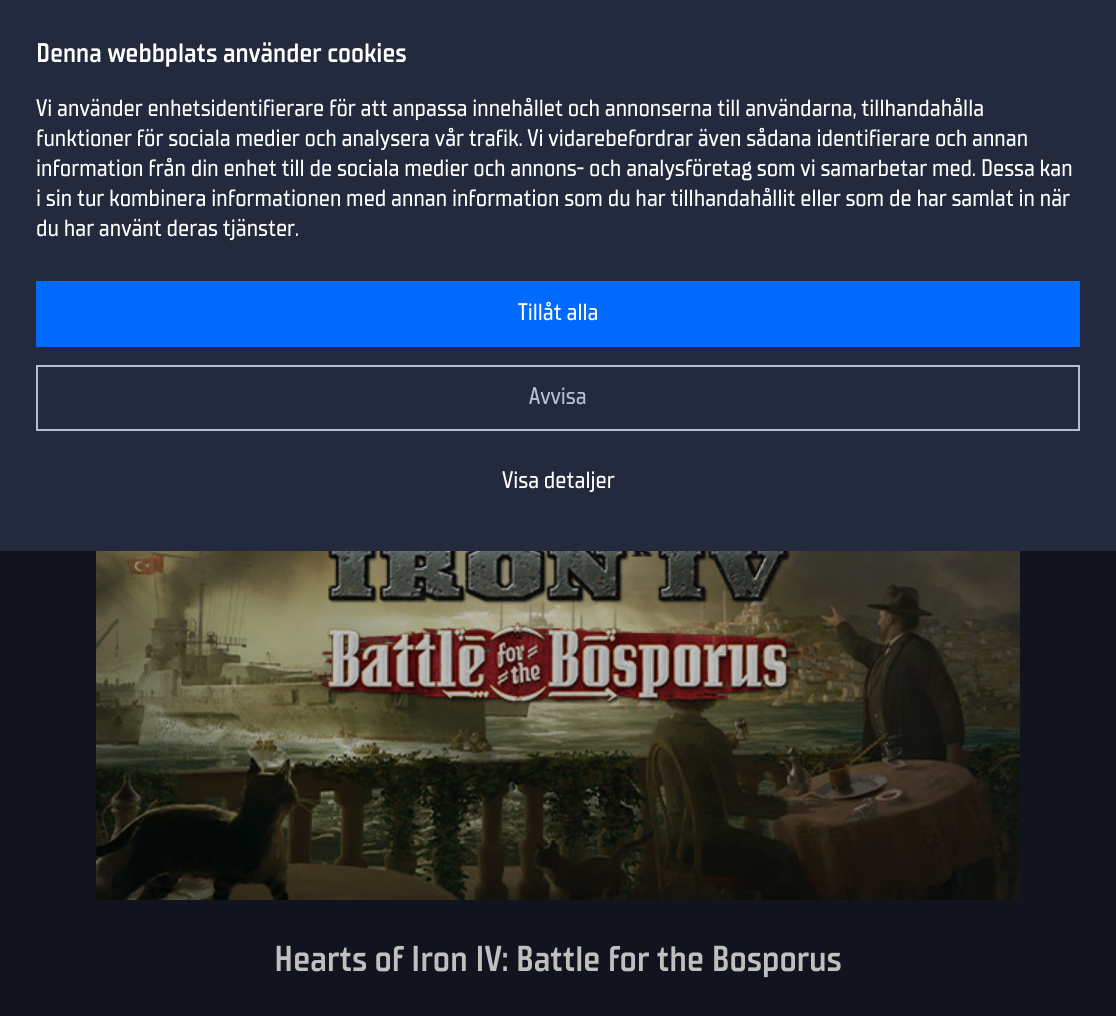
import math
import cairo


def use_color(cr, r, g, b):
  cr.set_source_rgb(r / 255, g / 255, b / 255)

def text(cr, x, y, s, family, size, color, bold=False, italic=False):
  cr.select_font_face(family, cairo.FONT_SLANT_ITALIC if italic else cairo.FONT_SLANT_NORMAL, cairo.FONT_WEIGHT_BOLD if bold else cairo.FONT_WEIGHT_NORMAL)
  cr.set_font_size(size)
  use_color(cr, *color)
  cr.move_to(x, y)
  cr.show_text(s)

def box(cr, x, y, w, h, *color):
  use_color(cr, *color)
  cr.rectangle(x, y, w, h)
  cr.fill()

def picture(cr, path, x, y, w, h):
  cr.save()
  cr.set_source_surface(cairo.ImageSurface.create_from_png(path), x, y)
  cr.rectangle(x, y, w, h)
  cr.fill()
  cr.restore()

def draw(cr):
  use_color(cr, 17, 20, 30)
  cr.paint()
  box(cr, 0, 0, 1116, 551, 35, 42, 62)
  box(cr, 36, 281, 1044, 66, 0, 106, 255)
  cr.rectangle(37, 366, 1042, 64)
  use_color(cr, 182, 190, 213)
  cr.stroke()
  picture(cr, "img_01.png", 96, 551, 924, 349)
  text(cr, 36, 62, "Denna webbplats använder cookies", "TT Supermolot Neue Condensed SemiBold", 27, (255, 255, 255))
  text(cr, 36, 116, "Vi använder enhetsidentifierare för att anpassa innehållet och annonserna till användarna, tillhandahålla", "TT Supermolot Neue Condensed Medium", 24, (255, 255, 255))
  text(cr, 36, 146, "funktioner för sociala medier och analysera vår trafik. Vi vidarebefordrar även sådana identifierare och annan", "TT Supermolot Neue Condensed Medium", 24, (255, 255, 255))
  text(cr, 36, 176, "information från din enhet till de sociala medier och annons- och analysföretag som vi samarbetar med. Dessa kan", "TT Supermolot Neue Condensed Medium", 24, (255, 255, 255))
  text(cr, 36, 206, "i sin tur kombinera informationen med annan information som du har tillhandahållit eller som de har samlat in när", "TT Supermolot Neue Condensed Medium", 24, (255, 255, 255))
  text(cr, 36, 236, "du har använt deras tjänster.", "TT Supermolot Neue Condensed Medium", 24, (255, 255, 255))
  text(cr, 518, 320, "Tillåt alla", "TT Supermolot Neue Condensed Medium", 24, (255, 255, 255))
  text(cr, 529, 404, "Avvisa", "TT Supermolot Neue Condensed Medium", 24, (182, 190, 213))
  text(cr, 502, 488, "Visa detaljer", "TT Supermolot Neue Condensed Medium", 24, (255, 255, 255))
  text(cr, 274, 971, "Hearts of Iron IV: Battle for the Bosporus", "TT Supermolot Neue Condensed SemiBold", 36, (191, 191, 191))


surface = cairo.ImageSurface(cairo.FORMAT_RGB24, 1116, 1016)
cr = cairo.Context(surface)
options = cairo.FontOptions()
options.set_hint_metrics(cairo.HINT_METRICS_OFF)
options.set_hint_style(cairo.HINT_STYLE_NONE)
cr.set_font_options(options)
cr.set_miter_limit(4)
draw(cr)
surface.write_to_png("out.png")
